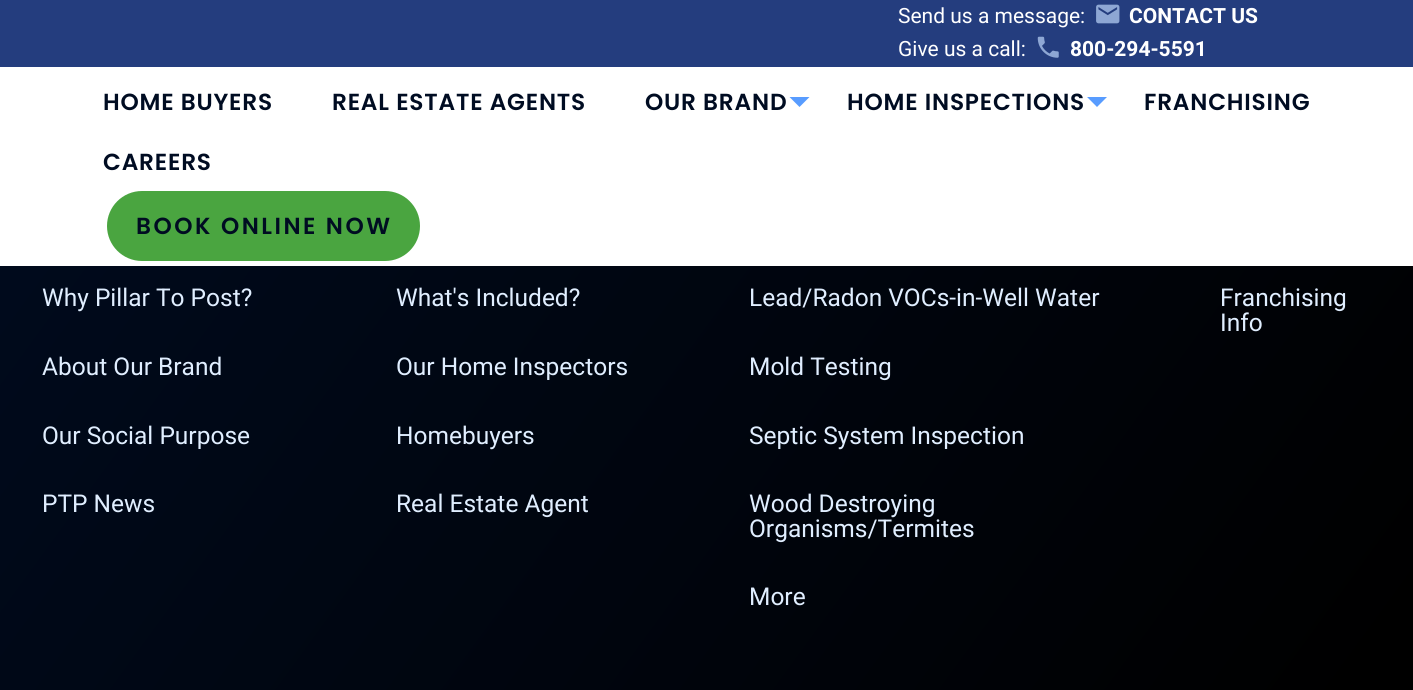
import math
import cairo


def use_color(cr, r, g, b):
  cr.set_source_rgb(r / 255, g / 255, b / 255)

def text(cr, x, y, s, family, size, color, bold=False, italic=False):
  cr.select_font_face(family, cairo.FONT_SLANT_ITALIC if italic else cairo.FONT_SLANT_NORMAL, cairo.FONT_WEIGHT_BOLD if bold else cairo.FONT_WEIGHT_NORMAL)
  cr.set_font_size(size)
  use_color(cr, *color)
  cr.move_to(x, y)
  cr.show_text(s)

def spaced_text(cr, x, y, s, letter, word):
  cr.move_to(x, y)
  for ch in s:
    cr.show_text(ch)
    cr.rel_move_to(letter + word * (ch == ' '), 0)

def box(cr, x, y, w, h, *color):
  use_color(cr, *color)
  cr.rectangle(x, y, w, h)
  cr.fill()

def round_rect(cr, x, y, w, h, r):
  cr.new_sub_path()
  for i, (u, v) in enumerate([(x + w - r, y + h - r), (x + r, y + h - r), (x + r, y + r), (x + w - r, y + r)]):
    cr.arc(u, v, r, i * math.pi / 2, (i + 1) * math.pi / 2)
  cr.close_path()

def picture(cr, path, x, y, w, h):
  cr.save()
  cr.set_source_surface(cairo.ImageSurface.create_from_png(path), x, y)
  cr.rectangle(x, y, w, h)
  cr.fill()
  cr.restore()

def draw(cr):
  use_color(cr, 255, 255, 255)
  cr.paint()
  box(cr, 0, 0, 1413, 67, 36, 61, 126)
  picture(cr, "img_01.png", 1096, 4, 24, 20)
  picture(cr, "img_02.png", 1037, 36, 22, 22)
  use_color(cr, 88, 156, 255)
  cr.new_path()
  cr.move_to(789.5, 97)
  cr.line_to(809.5, 97)
  cr.line_to(799.5, 107)
  cr.close_path()
  cr.fill()
  cr.new_path()
  cr.move_to(1087, 97)
  cr.line_to(1107, 97)
  cr.line_to(1097, 107)
  cr.close_path()
  cr.fill()
  use_color(cr, 74, 165, 64)
  round_rect(cr, 107, 191, 313, 70, 35)
  cr.fill()
  gradient = cairo.LinearGradient(-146, -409, 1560, 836)
  gradient.add_color_stop_rgba(0.12, 0, 0.047, 0.133, 1)
  gradient.add_color_stop_rgba(0.88, 0, 0, 0, 1)
  cr.set_source(gradient)
  cr.rectangle(0, 266, 1413, 424)
  cr.fill()
  text(cr, 898, 23, "Send us a message:", "Roboto", 21, (255, 255, 255))
  text(cr, 1129, 23, "CONTACT US", "Roboto", 21, (255, 255, 255), bold=True)
  text(cr, 898, 56, "Give us a call:", "Roboto", 21, (255, 255, 255))
  text(cr, 1070, 56, "800-294-5591", "Roboto", 21, (255, 255, 255), bold=True)
  cr.select_font_face("Poppins SemiBold")
  cr.set_font_size(23.25)
  use_color(cr, 0, 12, 34)
  spaced_text(cr, 103, 110, "HOME BUYERS", 0.8, 0)
  spaced_text(cr, 332, 110, "REAL ESTATE AGENTS", 0.8, 0)
  spaced_text(cr, 645, 110, "OUR BRAND", 0.8, 0)
  spaced_text(cr, 847, 110, "HOME INSPECTIONS", 0.8, 0)
  spaced_text(cr, 1144, 110, "FRANCHISING", 0.8, 0)
  spaced_text(cr, 103, 170, "CAREERS", 0.8, 0)
  spaced_text(cr, 136, 234, "BOOK ONLINE NOW", 2.5, 0)
  text(cr, 42, 306, "Why Pillar To Post?", "Roboto", 24.5, (224, 238, 255))
  text(cr, 42, 375, "About Our Brand", "Roboto", 24.5, (224, 238, 255))
  text(cr, 42, 444, "Our Social Purpose", "Roboto", 24.5, (224, 238, 255))
  text(cr, 42, 512, "PTP News", "Roboto", 24.5, (224, 238, 255))
  text(cr, 396, 306, "What's Included?", "Roboto", 24.5, (224, 238, 255))
  text(cr, 396, 375, "Our Home Inspectors", "Roboto", 24.5, (224, 238, 255))
  text(cr, 396, 444, "Homebuyers", "Roboto", 24.5, (224, 238, 255))
  text(cr, 396, 512, "Real Estate Agent", "Roboto", 24.5, (224, 238, 255))
  text(cr, 749, 306, "Lead/Radon VOCs-in-Well Water", "Roboto", 24.5, (224, 238, 255))
  text(cr, 749, 375, "Mold Testing", "Roboto", 24.5, (224, 238, 255))
  text(cr, 749, 444, "Septic System Inspection", "Roboto", 24.5, (224, 238, 255))
  text(cr, 749, 512, "Wood Destroying", "Roboto", 24.5, (224, 238, 255))
  text(cr, 749, 537, "Organisms/Termites", "Roboto", 24.5, (224, 238, 255))
  text(cr, 749, 605, "More", "Roboto", 24.5, (224, 238, 255))
  text(cr, 1220, 306, "Franchising", "Roboto", 24.5, (224, 238, 255))
  text(cr, 1220, 331, "Info", "Roboto", 24.5, (224, 238, 255))


surface = cairo.ImageSurface(cairo.FORMAT_RGB24, 1413, 690)
cr = cairo.Context(surface)
options = cairo.FontOptions()
options.set_hint_metrics(cairo.HINT_METRICS_OFF)
options.set_hint_style(cairo.HINT_STYLE_NONE)
cr.set_font_options(options)
cr.set_miter_limit(4)
draw(cr)
surface.write_to_png("out.png")
